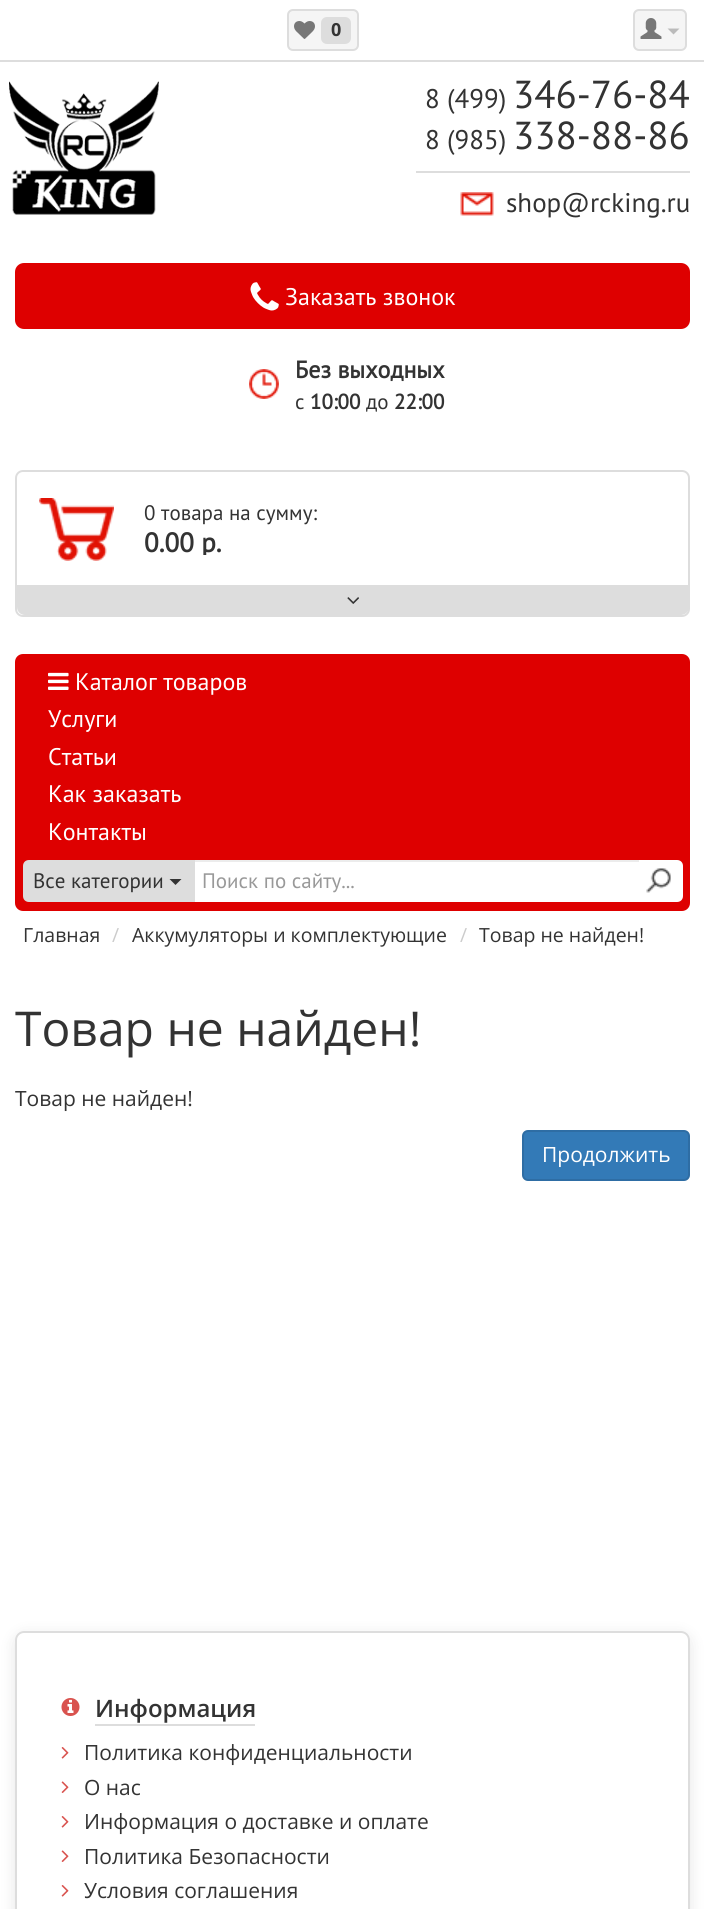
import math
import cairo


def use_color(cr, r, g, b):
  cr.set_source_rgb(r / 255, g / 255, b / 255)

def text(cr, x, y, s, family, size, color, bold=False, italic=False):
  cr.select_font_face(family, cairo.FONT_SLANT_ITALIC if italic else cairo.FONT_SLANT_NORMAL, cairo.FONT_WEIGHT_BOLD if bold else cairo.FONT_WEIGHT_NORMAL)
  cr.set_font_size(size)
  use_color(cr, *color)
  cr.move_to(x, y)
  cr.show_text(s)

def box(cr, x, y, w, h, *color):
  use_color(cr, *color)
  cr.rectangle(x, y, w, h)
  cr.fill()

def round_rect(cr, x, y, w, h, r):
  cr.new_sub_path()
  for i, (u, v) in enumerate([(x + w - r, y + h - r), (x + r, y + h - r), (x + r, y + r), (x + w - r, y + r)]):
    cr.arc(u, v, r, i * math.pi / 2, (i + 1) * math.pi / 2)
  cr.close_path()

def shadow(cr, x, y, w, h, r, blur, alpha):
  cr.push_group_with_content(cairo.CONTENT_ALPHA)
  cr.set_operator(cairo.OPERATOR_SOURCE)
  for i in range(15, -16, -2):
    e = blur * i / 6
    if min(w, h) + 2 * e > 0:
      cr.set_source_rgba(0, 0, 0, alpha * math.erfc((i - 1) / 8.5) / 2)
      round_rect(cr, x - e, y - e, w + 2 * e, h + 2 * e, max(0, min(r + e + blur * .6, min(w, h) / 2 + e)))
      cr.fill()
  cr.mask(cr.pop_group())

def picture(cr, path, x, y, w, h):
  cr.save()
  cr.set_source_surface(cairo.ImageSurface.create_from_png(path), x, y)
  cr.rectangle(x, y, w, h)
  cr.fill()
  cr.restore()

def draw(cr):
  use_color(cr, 255, 255, 255)
  cr.paint()
  box(cr, 0, 60, 704, 2, 221, 221, 221)
  use_color(cr, 245, 245, 245)
  round_rect(cr, 288, 10, 70, 40, 5)
  cr.fill_preserve()
  use_color(cr, 221, 221, 221)
  cr.stroke()
  picture(cr, "img_01.png", 294, 21, 21, 18)
  round_rect(cr, 321, 17, 30, 27, 6)
  cr.fill()
  use_color(cr, 245, 245, 245)
  round_rect(cr, 634, 10, 52, 40, 5)
  cr.fill_preserve()
  use_color(cr, 221, 221, 221)
  cr.stroke()
  picture(cr, "img_02.png", 640, 18, 22, 21)
  use_color(cr, 187, 187, 187)
  cr.new_path()
  cr.move_to(667.5, 28.5)
  cr.line_to(679.5, 28.5)
  cr.line_to(673.5, 34.5)
  cr.close_path()
  cr.fill()
  picture(cr, "img_03.png", 9, 81, 150, 134)
  box(cr, 416, 171, 274, 2, 221, 221, 221)
  picture(cr, "img_04.png", 460, 192, 34, 24)
  use_color(cr, 222, 0, 0)
  round_rect(cr, 16, 264, 673, 64, 8)
  cr.fill_preserve()
  cr.stroke()
  picture(cr, "img_05.png", 250, 282, 29, 29)
  picture(cr, "img_06.png", 249, 369, 30, 30)
  picture(cr, "img_07.png", 39, 498, 75, 63)
  round_rect(cr, 16, 471, 673, 145, 7)
  use_color(cr, 221, 221, 221)
  cr.stroke()
  cr.new_path()
  cr.move_to(17, 585)
  cr.line_to(689, 585)
  cr.line_to(689, 607)
  cr.curve_to(689, 611.5, 685.5, 615, 681, 615)
  cr.line_to(25, 615)
  cr.curve_to(20.5, 615, 17, 611.5, 17, 607)
  cr.close_path()
  cr.fill()
  picture(cr, "img_08.png", 347, 597, 12, 7)
  use_color(cr, 222, 0, 0)
  round_rect(cr, 15, 654, 675, 257, 8)
  cr.fill()
  picture(cr, "img_09.png", 48, 672, 21, 18)
  use_color(cr, 221, 221, 221)
  cr.new_path()
  cr.move_to(29, 860)
  cr.line_to(197, 860)
  cr.line_to(197, 902)
  cr.line_to(29, 902)
  cr.curve_to(25.5, 902, 23, 899.5, 23, 896)
  cr.line_to(23, 866)
  cr.curve_to(23, 862.5, 25.5, 860, 29, 860)
  cr.close_path()
  cr.fill()
  use_color(cr, 51, 51, 51)
  cr.new_path()
  cr.move_to(169.5, 879)
  cr.line_to(181.5, 879)
  cr.line_to(175.5, 885)
  cr.close_path()
  cr.fill()
  box(cr, 195, 862, 443, 40, 255, 255, 255)
  cr.new_path()
  cr.move_to(638, 860)
  cr.line_to(677, 860)
  cr.curve_to(680.5, 860, 683, 862.5, 683, 866)
  cr.line_to(683, 896)
  cr.curve_to(683, 899.5, 680.5, 902, 677, 902)
  cr.line_to(638, 902)
  cr.close_path()
  cr.fill()
  box(cr, 195, 860, 444, 2, 236, 236, 236)
  picture(cr, "img_10.png", 646, 868, 25, 25)
  use_color(cr, 51, 122, 183)
  round_rect(cr, 523, 1131, 166, 49, 5)
  cr.fill_preserve()
  use_color(cr, 46, 109, 164)
  cr.stroke()
  cr.save()
  cr.set_fill_rule(cairo.FILL_RULE_EVEN_ODD)
  cr.new_path()
  cr.move_to(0, 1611)
  cr.line_to(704, 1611)
  cr.line_to(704, 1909)
  cr.line_to(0, 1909)
  cr.close_path()
  cr.move_to(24, 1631)
  cr.line_to(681, 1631)
  cr.curve_to(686, 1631, 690, 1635, 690, 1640)
  cr.line_to(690, 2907)
  cr.curve_to(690, 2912, 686, 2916, 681, 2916)
  cr.line_to(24, 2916)
  cr.curve_to(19, 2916, 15, 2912, 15, 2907)
  cr.line_to(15, 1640)
  cr.curve_to(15, 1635, 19, 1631, 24, 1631)
  cr.close_path()
  cr.clip()
  use_color(cr, 0, 0, 0)
  shadow(cr, 15, 1635, 675, 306, 9, 7.5, 0.1)
  cr.restore()
  round_rect(cr, 16, 1632, 673, 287, 8)
  use_color(cr, 221, 221, 221)
  cr.stroke()
  picture(cr, "img_11.png", 61, 1698, 19, 18)
  box(cr, 95, 1724, 160, 2, 221, 221, 221)
  picture(cr, "img_12.png", 61, 1747, 8, 12)
  picture(cr, "img_13.png", 61, 1781, 8, 12)
  picture(cr, "img_12.png", 61, 1816, 8, 12)
  picture(cr, "img_13.png", 61, 1850, 8, 12)
  picture(cr, "img_12.png", 61, 1885, 8, 12)
  text(cr, 331, 36, "0", "Open Sans", 18, (51, 51, 51), bold=True)
  text(cr, 425, 108, "8 (499)", "PT Sans", 27, (51, 51, 51))
  text(cr, 513, 108, "346-76-84", "PT Sans", 39, (51, 51, 51))
  text(cr, 425, 149, "8 (985)", "PT Sans", 27, (51, 51, 51))
  text(cr, 513, 149, "338-88-86", "PT Sans", 39, (51, 51, 51))
  text(cr, 506, 212, "shop@rcking.ru", "PT Sans", 27, (51, 51, 51))
  text(cr, 285, 305, "Заказать звонок", "PT Sans", 24, (255, 255, 255))
  text(cr, 295, 378, "Без выходных", "PT Sans", 24, (51, 51, 51), bold=True)
  text(cr, 295, 409, "c", "PT Sans", 21, (51, 51, 51))
  text(cr, 310, 409, "10:00", "PT Sans", 21, (51, 51, 51), bold=True)
  text(cr, 366, 409, "до", "PT Sans", 21, (51, 51, 51))
  text(cr, 394, 409, "22:00", "PT Sans", 21, (51, 51, 51), bold=True)
  text(cr, 144, 520, "0 товарa на сумму:", "PT Sans", 21, (51, 51, 51))
  cr.save()
  cr.rectangle(144, 531, 78, 24)
  cr.clip()
  text(cr, 144, 552, "0.00 р.", "PT Sans", 27, (51, 51, 51), bold=True)
  cr.restore()
  text(cr, 75, 690, "Каталог товаров", "PT Sans", 24, (255, 255, 255))
  text(cr, 48, 727, "Услуги", "PT Sans", 24, (255, 255, 255))
  text(cr, 48, 765, "Статьи", "PT Sans", 24, (255, 255, 255))
  text(cr, 48, 802, "Как заказать", "PT Sans", 24, (255, 255, 255))
  text(cr, 48, 840, "Контакты", "PT Sans", 24, (255, 255, 255))
  text(cr, 33, 888, "Все категории", "PT Sans", 21, (51, 51, 51))
  text(cr, 202, 888, "Поиск по сайту...", "PT Sans", 21, (153, 153, 153))
  text(cr, 23, 942, "Главная", "Open Sans", 19.5, (51, 51, 51))
  text(cr, 112, 942, "/", "Open Sans", 19.5, (204, 204, 204))
  text(cr, 132, 942, "Аккумуляторы и комплектующие", "Open Sans", 19.5, (51, 51, 51))
  text(cr, 460, 942, "/", "Open Sans", 19.5, (204, 204, 204))
  text(cr, 479, 942, "Товар не найден!", "Open Sans", 19.5, (51, 51, 51))
  text(cr, 15, 1046, "Товар не найден!", "Open Sans", 48, (51, 51, 51))
  text(cr, 15, 1106, "Товар не найден!", "Open Sans", 21, (51, 51, 51))
  text(cr, 542, 1162, "Продолжить", "Open Sans", 21, (255, 255, 255))
  text(cr, 95, 1717, "Информация", "Open Sans SemiBold", 24, (51, 51, 51))
  text(cr, 84, 1760, "Политика конфиденциальности", "Open Sans", 21, (51, 51, 51))
  text(cr, 84, 1795, "О нас", "Open Sans", 21, (51, 51, 51))
  text(cr, 84, 1829, "Информация о доставке и оплате", "Open Sans", 21, (51, 51, 51))
  text(cr, 84, 1864, "Политика Безопасности", "Open Sans", 21, (51, 51, 51))
  text(cr, 84, 1898, "Условия соглашения", "Open Sans", 21, (51, 51, 51))


surface = cairo.ImageSurface(cairo.FORMAT_RGB24, 704, 1909)
cr = cairo.Context(surface)
options = cairo.FontOptions()
options.set_hint_metrics(cairo.HINT_METRICS_OFF)
options.set_hint_style(cairo.HINT_STYLE_NONE)
cr.set_font_options(options)
cr.set_miter_limit(4)
draw(cr)
surface.write_to_png("out.png")
